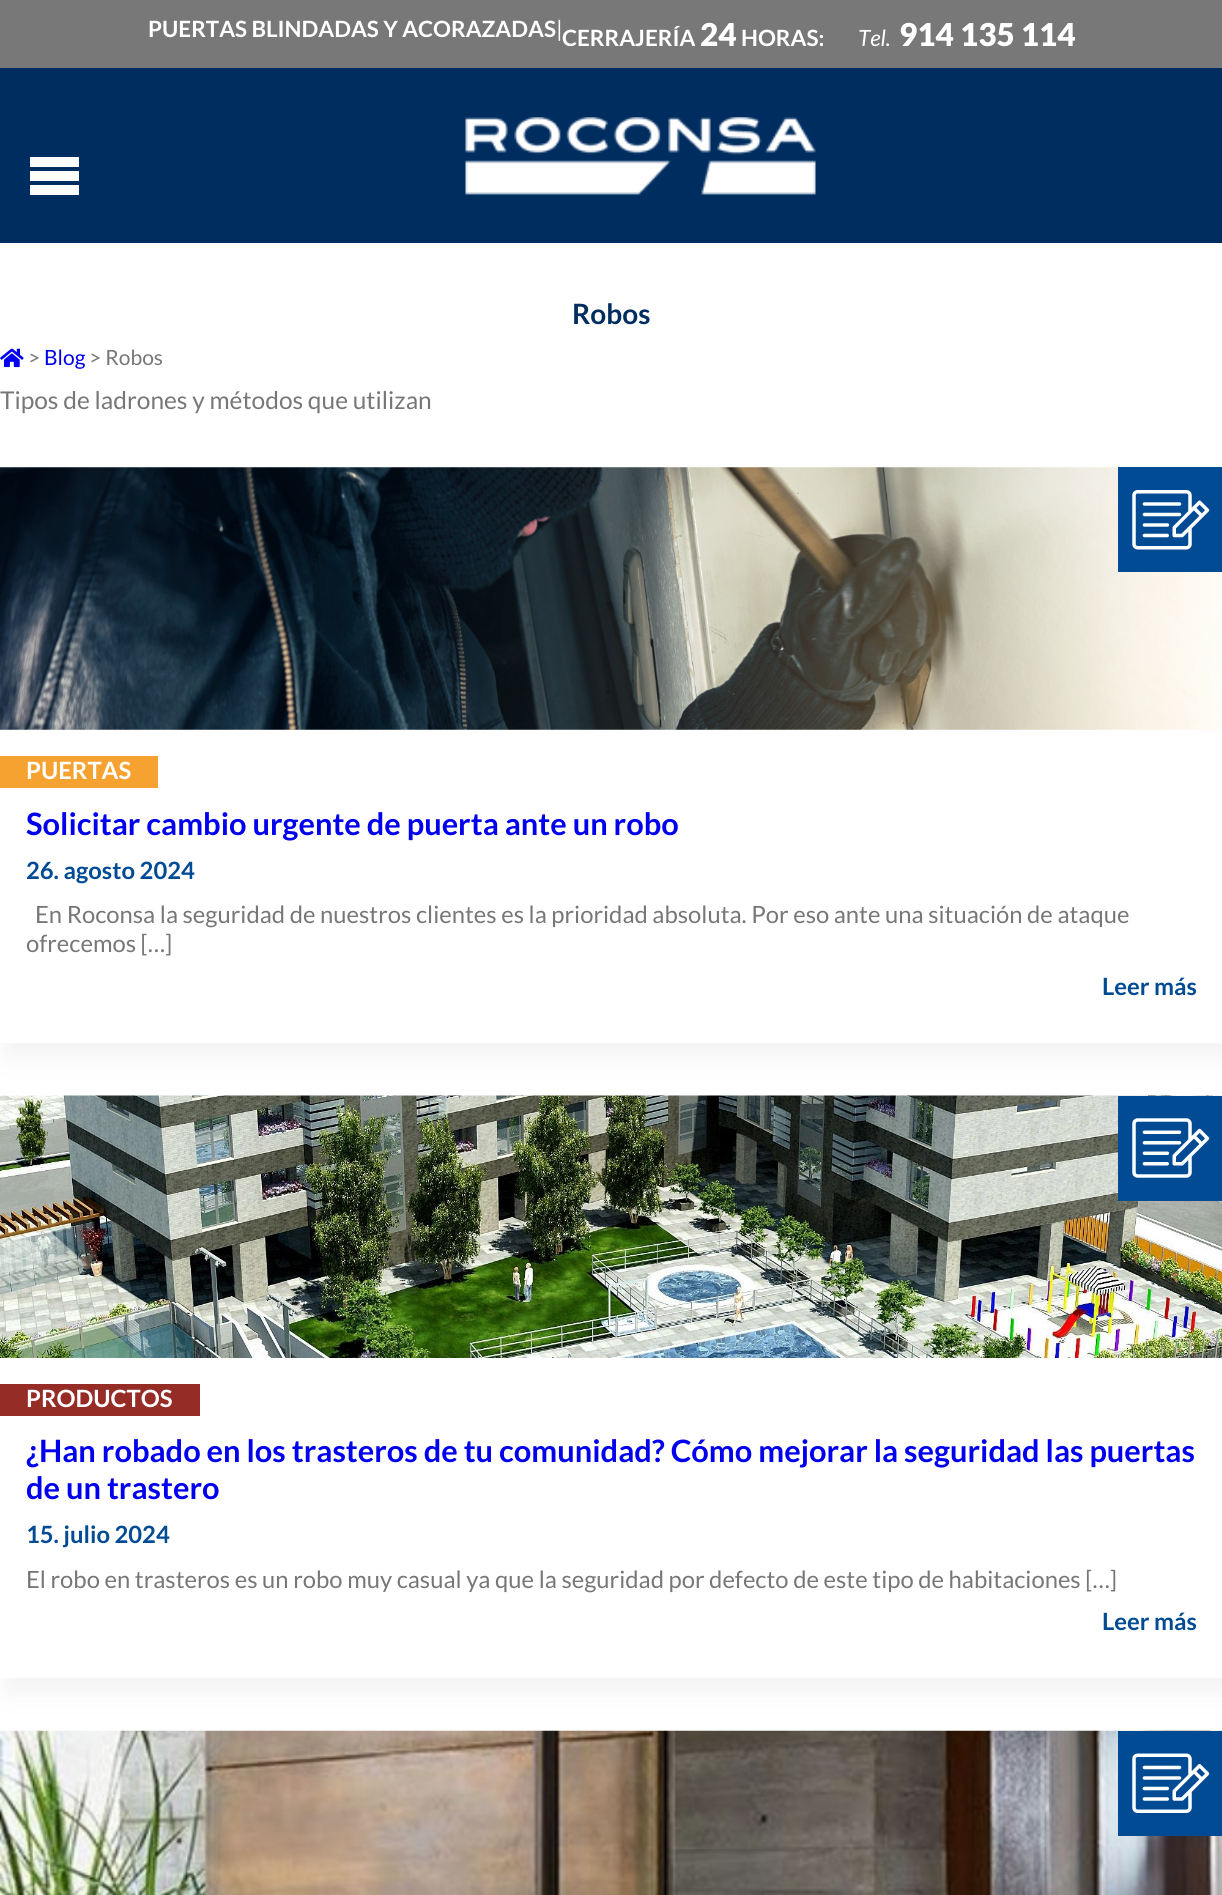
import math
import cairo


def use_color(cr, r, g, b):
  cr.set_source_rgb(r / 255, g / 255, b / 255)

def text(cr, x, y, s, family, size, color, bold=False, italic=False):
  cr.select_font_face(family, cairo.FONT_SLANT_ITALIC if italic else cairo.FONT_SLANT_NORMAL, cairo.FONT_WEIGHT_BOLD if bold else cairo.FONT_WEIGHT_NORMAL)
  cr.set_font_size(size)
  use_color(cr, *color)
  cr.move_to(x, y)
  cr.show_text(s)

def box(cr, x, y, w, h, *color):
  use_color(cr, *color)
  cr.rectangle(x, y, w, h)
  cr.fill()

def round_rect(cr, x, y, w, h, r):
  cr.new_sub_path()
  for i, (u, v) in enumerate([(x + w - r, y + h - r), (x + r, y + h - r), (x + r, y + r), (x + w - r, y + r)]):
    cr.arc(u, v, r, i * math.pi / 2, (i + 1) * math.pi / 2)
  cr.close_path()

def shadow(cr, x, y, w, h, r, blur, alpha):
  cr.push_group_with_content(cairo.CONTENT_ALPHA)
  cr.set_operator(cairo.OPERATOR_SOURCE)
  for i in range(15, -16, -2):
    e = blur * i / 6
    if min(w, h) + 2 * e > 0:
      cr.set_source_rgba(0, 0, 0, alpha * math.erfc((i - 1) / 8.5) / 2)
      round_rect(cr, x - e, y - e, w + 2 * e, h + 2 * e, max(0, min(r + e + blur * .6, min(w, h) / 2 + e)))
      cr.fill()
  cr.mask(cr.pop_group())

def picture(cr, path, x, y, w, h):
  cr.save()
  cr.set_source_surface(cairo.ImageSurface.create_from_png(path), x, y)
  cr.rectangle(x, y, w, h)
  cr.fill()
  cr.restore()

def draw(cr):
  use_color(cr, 255, 255, 255)
  cr.paint()
  box(cr, 0, 0, 1222, 68, 120, 120, 120)
  box(cr, 0, 68, 1222, 175, 0, 45, 96)
  use_color(cr, 255, 255, 255)
  cr.new_path()
  cr.move_to(30, 157)
  cr.line_to(79, 157)
  cr.line_to(79, 167)
  cr.line_to(30, 167)
  cr.close_path()
  cr.move_to(30, 171)
  cr.line_to(79, 171)
  cr.line_to(79, 181)
  cr.line_to(30, 181)
  cr.close_path()
  cr.move_to(30, 185)
  cr.line_to(79, 185)
  cr.line_to(79, 195)
  cr.line_to(30, 195)
  cr.close_path()
  cr.fill()
  picture(cr, "img_01.png", 465, 117, 351, 78)
  picture(cr, "img_02.png", 0, 348, 24, 20)
  cr.save()
  cr.set_fill_rule(cairo.FILL_RULE_EVEN_ODD)
  cr.new_path()
  cr.move_to(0, 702)
  cr.line_to(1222, 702)
  cr.line_to(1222, 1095)
  cr.line_to(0, 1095)
  cr.close_path()
  cr.move_to(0, 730)
  cr.line_to(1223, 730)
  cr.line_to(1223, 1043)
  cr.line_to(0, 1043)
  cr.close_path()
  cr.clip()
  use_color(cr, 242, 242, 242)
  shadow(cr, 7, 742, 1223, 313, 0, 13, 1)
  cr.restore()
  picture(cr, "img_03.png", 0, 467, 1222, 263)
  box(cr, 1118, 467, 104, 105, 0, 75, 148)
  picture(cr, "img_04.png", 1132, 490, 78, 60)
  box(cr, 0, 756, 158, 32, 246, 162, 48)
  cr.save()
  cr.rectangle(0, 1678, 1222, 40)
  cr.clip()
  use_color(cr, 242, 242, 242)
  shadow(cr, 7, 1370, 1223, 321, 0, 13, 1)
  cr.restore()
  picture(cr, "img_05.png", 0, 1095, 1222, 263)
  box(cr, 1118, 1096, 104, 105, 0, 75, 148)
  picture(cr, "img_06.png", 1132, 1118, 78, 60)
  box(cr, 0, 1384, 200, 32, 149, 44, 38)
  picture(cr, "img_07.png", 0, 1730, 1222, 165)
  box(cr, 1118, 1731, 104, 105, 0, 75, 148)
  picture(cr, "img_08.png", 1132, 1753, 78, 60)
  text(cr, 148, 37, "PUERTAS BLINDADAS Y ACORAZADAS", "Lato", 22.4, (255, 255, 255), bold=True)
  text(cr, 556, 37, "|", "Lato", 22.4, (255, 255, 255))
  text(cr, 562, 46, "CERRAJERÍA", "Lato", 22.4, (255, 255, 255), bold=True)
  text(cr, 700, 46, "24", "Lato Black", 31.5, (255, 255, 255))
  text(cr, 741, 46, "HORAS:", "Lato", 22.4, (255, 255, 255), bold=True)
  text(cr, 858, 46, "Tel.", "Lato", 22.4, (255, 255, 255), italic=True)
  text(cr, 899, 46, "914 135 114", "Lato Black", 31.5, (255, 255, 255))
  text(cr, 572, 324, "Robos", "Lato", 28, (0, 45, 96), bold=True)
  text(cr, 28, 365, ">", "Lato", 21, (119, 119, 119))
  text(cr, 44, 365, "Blog", "Lato", 21, (0, 0, 238))
  text(cr, 89, 365, "> Robos", "Lato", 21, (119, 119, 119))
  text(cr, 0, 409, "Tipos de ladrones y métodos que utilizan", "Lato", 24.5, (119, 119, 119))
  text(cr, 26, 779, "PUERTAS", "Lato", 23.8, (255, 255, 255), bold=True)
  text(cr, 26, 835, "Solicitar cambio urgente de puerta ante un robo", "Lato", 30.8, (0, 0, 238), bold=True)
  text(cr, 26, 879, "26. agosto 2024", "Lato", 23.8, (0, 75, 148), bold=True)
  text(cr, 35, 923, "En Roconsa la seguridad de nuestros clientes es la prioridad absoluta. Por eso ante una situación de ataque", "Lato", 23.8, (119, 119, 119))
  text(cr, 26, 952, "ofrecemos […]", "Lato", 23.8, (119, 119, 119))
  text(cr, 1102, 995, "Leer más", "Lato", 23.8, (0, 75, 148), bold=True)
  text(cr, 26, 1407, "PRODUCTOS", "Lato", 23.8, (255, 255, 255), bold=True)
  text(cr, 26, 1462, "¿Han robado en los trasteros de tu comunidad? Cómo mejorar la seguridad las puertas", "Lato", 30.8, (0, 0, 238), bold=True)
  text(cr, 26, 1499, "de un trastero", "Lato", 30.8, (0, 0, 238), bold=True)
  text(cr, 26, 1543, "15. julio 2024", "Lato", 23.8, (0, 75, 148), bold=True)
  text(cr, 26, 1588, "El robo en trasteros es un robo muy casual ya que la seguridad por defecto de este tipo de habitaciones […]", "Lato", 23.8, (119, 119, 119))
  text(cr, 1102, 1630, "Leer más", "Lato", 23.8, (0, 75, 148), bold=True)


surface = cairo.ImageSurface(cairo.FORMAT_RGB24, 1222, 1895)
cr = cairo.Context(surface)
options = cairo.FontOptions()
options.set_hint_metrics(cairo.HINT_METRICS_OFF)
options.set_hint_style(cairo.HINT_STYLE_NONE)
cr.set_font_options(options)
cr.set_miter_limit(4)
draw(cr)
surface.write_to_png("out.png")
